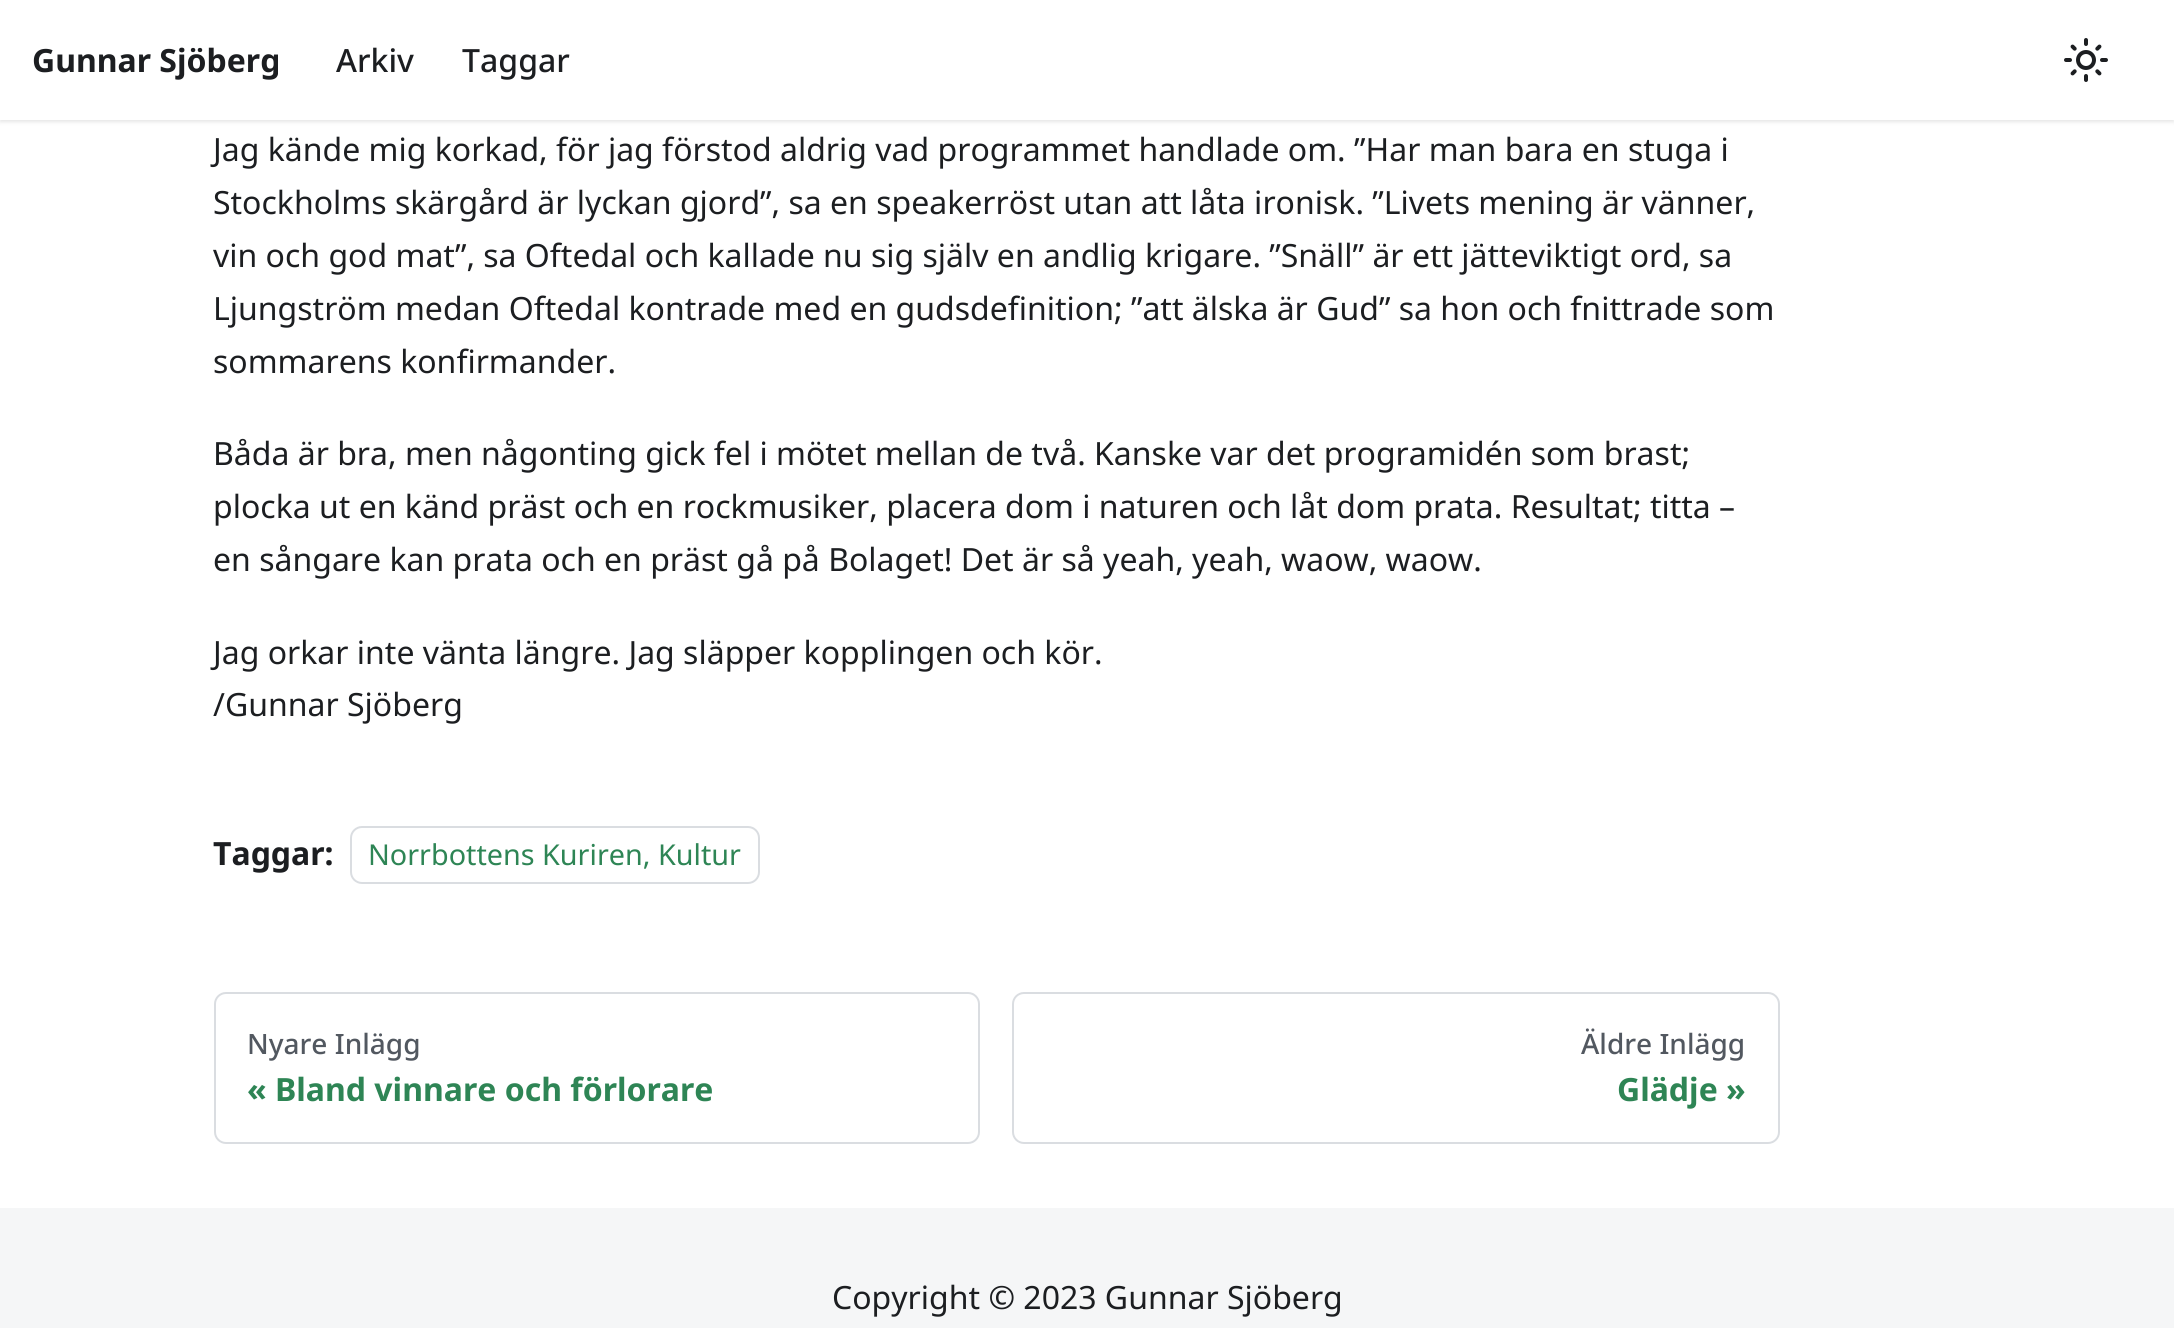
import math
import cairo


def use_color(cr, r, g, b):
  cr.set_source_rgb(r / 255, g / 255, b / 255)

def text(cr, x, y, s, family, size, color, bold=False, italic=False):
  cr.select_font_face(family, cairo.FONT_SLANT_ITALIC if italic else cairo.FONT_SLANT_NORMAL, cairo.FONT_WEIGHT_BOLD if bold else cairo.FONT_WEIGHT_NORMAL)
  cr.set_font_size(size)
  use_color(cr, *color)
  cr.move_to(x, y)
  cr.show_text(s)

def box(cr, x, y, w, h, *color):
  use_color(cr, *color)
  cr.rectangle(x, y, w, h)
  cr.fill()

def round_rect(cr, x, y, w, h, r):
  cr.new_sub_path()
  for i, (u, v) in enumerate([(x + w - r, y + h - r), (x + r, y + h - r), (x + r, y + r), (x + w - r, y + r)]):
    cr.arc(u, v, r, i * math.pi / 2, (i + 1) * math.pi / 2)
  cr.close_path()

def shadow(cr, x, y, w, h, r, blur, alpha):
  cr.push_group_with_content(cairo.CONTENT_ALPHA)
  cr.set_operator(cairo.OPERATOR_SOURCE)
  for i in range(15, -16, -2):
    e = blur * i / 6
    if min(w, h) + 2 * e > 0:
      cr.set_source_rgba(0, 0, 0, alpha * math.erfc((i - 1) / 8.5) / 2)
      round_rect(cr, x - e, y - e, w + 2 * e, h + 2 * e, max(0, min(r + e + blur * .6, min(w, h) / 2 + e)))
      cr.fill()
  cr.mask(cr.pop_group())

def picture(cr, path, x, y, w, h):
  cr.save()
  cr.set_source_surface(cairo.ImageSurface.create_from_png(path), x, y)
  cr.rectangle(x, y, w, h)
  cr.fill()
  cr.restore()

def draw(cr):
  use_color(cr, 255, 255, 255)
  cr.paint()
  use_color(cr, 0, 0, 0)
  shadow(cr, 0, 2, 2174, 120, 0, 2, 0.1)
  box(cr, 0, 0, 2174, 120, 255, 255, 255)
  picture(cr, "img_01.png", 2064, 38, 44, 44)
  round_rect(cr, 351, 827, 408, 56, 11)
  use_color(cr, 218, 221, 225)
  cr.stroke()
  round_rect(cr, 215, 993, 764, 150, 11)
  cr.stroke()
  round_rect(cr, 1013, 993, 766, 150, 11)
  cr.stroke()
  box(cr, 0, 1208, 2174, 120, 245, 246, 247)
  text(cr, 32, 72, "Gunnar Sjöberg", "Noto Sans", 32, (28, 30, 33), bold=True)
  text(cr, 336, 72, "Arkiv", "Noto Sans Medium", 32, (28, 30, 33))
  text(cr, 462, 72, "Taggar", "Noto Sans Medium", 32, (28, 30, 33))
  text(cr, 213, 161, "Jag kände mig korkad, för jag förstod aldrig vad programmet handlade om. ”Har man bara en stuga i", "Noto Sans", 32, (28, 30, 33))
  text(cr, 213, 214, "Stockholms skärgård är lyckan gjord”, sa en speakerröst utan att låta ironisk. ”Livets mening är vänner,", "Noto Sans", 32, (28, 30, 33))
  text(cr, 213, 267, "vin och god mat”, sa Oftedal och kallade nu sig själv en andlig krigare. ”Snäll” är ett jätteviktigt ord, sa", "Noto Sans", 32, (28, 30, 33))
  text(cr, 213, 320, "Ljungström medan Oftedal kontrade med en gudsdefinition; ”att älska är Gud” sa hon och fnittrade som", "Noto Sans", 32, (28, 30, 33))
  text(cr, 213, 373, "sommarens konfirmander.", "Noto Sans", 32, (28, 30, 33))
  text(cr, 213, 465, "Båda är bra, men någonting gick fel i mötet mellan de två. Kanske var det programidén som brast;", "Noto Sans", 32, (28, 30, 33))
  text(cr, 213, 518, "plocka ut en känd präst och en rockmusiker, placera dom i naturen och låt dom prata. Resultat; titta –", "Noto Sans", 32, (28, 30, 33))
  text(cr, 213, 571, "en sångare kan prata och en präst gå på Bolaget! Det är så yeah, yeah, waow, waow.", "Noto Sans", 32, (28, 30, 33))
  text(cr, 213, 664, "Jag orkar inte vänta längre. Jag släpper kopplingen och kör.", "Noto Sans", 32, (28, 30, 33))
  text(cr, 213, 716, "/Gunnar Sjöberg", "Noto Sans", 32, (28, 30, 33))
  text(cr, 213, 865, "Taggar:", "Noto Sans", 32, (28, 30, 33), bold=True)
  text(cr, 368, 865, "Norrbottens Kuriren, Kultur", "Noto Sans", 28.75, (46, 133, 85))
  text(cr, 247, 1054, "Nyare Inlägg", "Noto Sans Medium", 28, (82, 88, 96))
  text(cr, 247, 1101, "« Bland vinnare och förlorare", "Noto Sans", 32, (46, 133, 85), bold=True)
  text(cr, 1581, 1054, "Äldre Inlägg", "Noto Sans Medium", 28, (82, 88, 96))
  text(cr, 1617, 1101, "Glädje »", "Noto Sans", 32, (46, 133, 85), bold=True)
  text(cr, 832, 1309, "Copyright © 2023 Gunnar Sjöberg", "Noto Sans", 32, (28, 30, 33))


surface = cairo.ImageSurface(cairo.FORMAT_RGB24, 2174, 1328)
cr = cairo.Context(surface)
options = cairo.FontOptions()
options.set_hint_metrics(cairo.HINT_METRICS_OFF)
options.set_hint_style(cairo.HINT_STYLE_NONE)
cr.set_font_options(options)
cr.set_miter_limit(4)
draw(cr)
surface.write_to_png("out.png")
